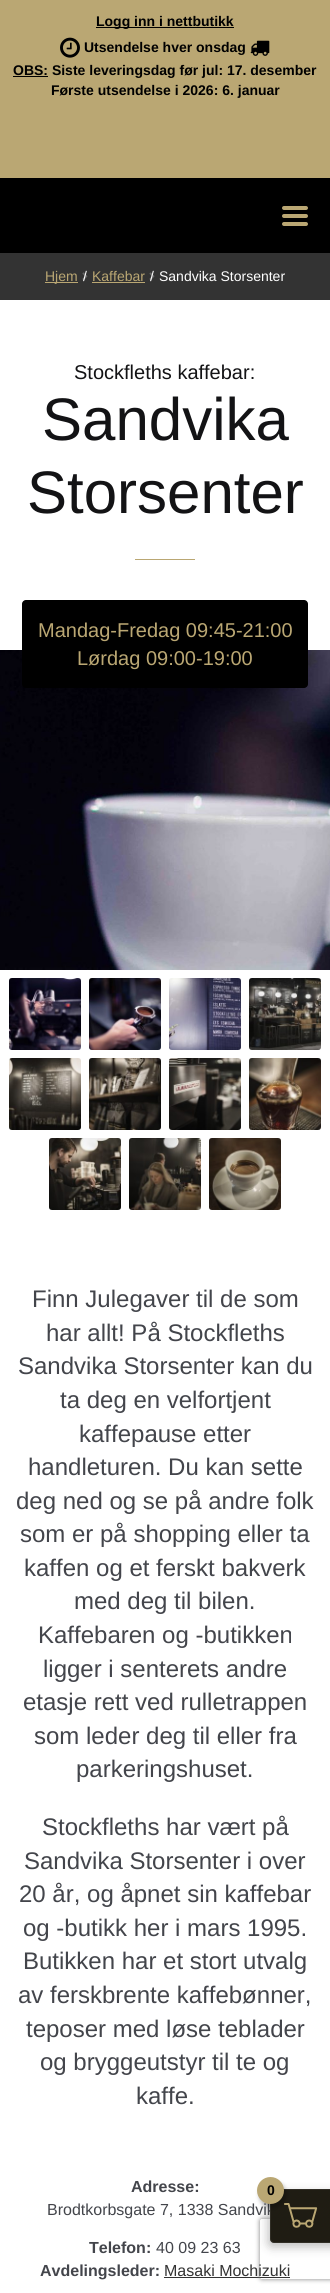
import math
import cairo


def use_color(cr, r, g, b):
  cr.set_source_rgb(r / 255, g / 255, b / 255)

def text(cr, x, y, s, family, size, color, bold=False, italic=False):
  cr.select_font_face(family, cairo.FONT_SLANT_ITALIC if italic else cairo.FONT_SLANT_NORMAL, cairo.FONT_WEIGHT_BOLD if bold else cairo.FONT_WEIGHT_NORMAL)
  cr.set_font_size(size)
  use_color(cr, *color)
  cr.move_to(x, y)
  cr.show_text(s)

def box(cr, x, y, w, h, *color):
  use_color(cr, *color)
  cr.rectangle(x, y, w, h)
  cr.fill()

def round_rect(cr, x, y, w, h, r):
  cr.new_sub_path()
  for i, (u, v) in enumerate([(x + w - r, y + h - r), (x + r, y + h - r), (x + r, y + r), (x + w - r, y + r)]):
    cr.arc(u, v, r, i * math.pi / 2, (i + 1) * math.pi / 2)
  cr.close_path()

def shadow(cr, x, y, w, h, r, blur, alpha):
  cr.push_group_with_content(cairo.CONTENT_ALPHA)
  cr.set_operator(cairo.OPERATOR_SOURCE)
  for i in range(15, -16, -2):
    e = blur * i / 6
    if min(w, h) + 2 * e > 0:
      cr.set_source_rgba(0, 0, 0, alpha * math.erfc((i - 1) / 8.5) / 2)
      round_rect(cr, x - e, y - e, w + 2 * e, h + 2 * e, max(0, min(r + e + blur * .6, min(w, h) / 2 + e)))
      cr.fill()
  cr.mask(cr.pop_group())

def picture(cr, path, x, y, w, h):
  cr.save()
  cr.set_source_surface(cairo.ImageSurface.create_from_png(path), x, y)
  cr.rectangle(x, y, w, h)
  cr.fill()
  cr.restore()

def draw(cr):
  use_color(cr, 255, 255, 255)
  cr.paint()
  box(cr, 0, 0, 330, 178, 186, 167, 115)
  box(cr, 96, 27, 138, 1, 0, 0, 0)
  picture(cr, "img_01.png", 60, 37, 20, 21)
  picture(cr, "img_02.png", 250, 40, 20, 16)
  box(cr, 13, 76, 35, 1, 0, 0, 0)
  box(cr, 0, 253, 330, 47, 51, 51, 51)
  box(cr, 45, 282, 33, 1, 186, 167, 115)
  box(cr, 92, 282, 53, 1, 186, 167, 115)
  box(cr, 135, 559, 60, 1, 186, 167, 115)
  picture(cr, "img_05.png", 0, 650, 330, 320)
  use_color(cr, 0, 0, 0)
  round_rect(cr, 22, 600, 286, 88, 4)
  cr.fill()
  picture(cr, "img_06.png", 9, 978, 72, 72)
  picture(cr, "img_07.png", 89, 978, 72, 72)
  picture(cr, "img_08.png", 169, 978, 72, 72)
  picture(cr, "img_09.png", 249, 978, 72, 72)
  picture(cr, "img_10.png", 9, 1058, 72, 72)
  picture(cr, "img_11.png", 89, 1058, 72, 72)
  picture(cr, "img_12.png", 169, 1058, 72, 72)
  picture(cr, "img_13.png", 249, 1058, 72, 72)
  picture(cr, "img_14.png", 49, 1138, 72, 72)
  picture(cr, "img_15.png", 129, 1138, 72, 72)
  picture(cr, "img_16.png", 209, 1138, 72, 72)
  box(cr, 164, 2277, 126, 1, 51, 51, 51)
  box(cr, 0, 178, 330, 75, 0, 0, 0)
  use_color(cr, 186, 167, 115)
  round_rect(cr, 282, 206, 26, 4, 2)
  cr.fill()
  round_rect(cr, 282, 214, 26, 4, 2)
  cr.fill()
  round_rect(cr, 282, 222, 26, 4, 2)
  cr.fill()
  use_color(cr, 0, 0, 0)
  shadow(cr, 268, 2193, 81, 54, 4, 5, 0.25)
  cr.save()
  cr.set_fill_rule(cairo.FILL_RULE_EVEN_ODD)
  cr.new_path()
  cr.move_to(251, 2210)
  cr.line_to(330, 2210)
  cr.line_to(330, 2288)
  cr.line_to(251, 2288)
  cr.close_path()
  cr.move_to(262, 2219)
  cr.line_to(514, 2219)
  cr.curve_to(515, 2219, 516, 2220, 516, 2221)
  cr.line_to(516, 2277)
  cr.curve_to(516, 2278, 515, 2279, 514, 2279)
  cr.line_to(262, 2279)
  cr.curve_to(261, 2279, 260, 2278, 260, 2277)
  cr.line_to(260, 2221)
  cr.curve_to(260, 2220, 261, 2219, 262, 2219)
  cr.close_path()
  cr.clip()
  use_color(cr, 128, 128, 128)
  shadow(cr, 260, 2219, 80, 60, 2, 2.5, 1)
  cr.restore()
  text(cr, 96, 26, "Logg inn i nettbutikk", "Liberation Sans", 14, (0, 0, 0), bold=True)
  text(cr, 84, 52, "Utsendelse hver onsdag", "Liberation Sans", 14, (0, 0, 0), bold=True)
  text(cr, 13, 75, "OBS: Siste leveringsdag før jul: 17. desember", "Liberation Sans", 14, (0, 0, 0), bold=True)
  text(cr, 51, 95, "Første utsendelse i 2026: 6. januar", "Liberation Sans", 14, (0, 0, 0), bold=True)
  text(cr, 45, 281, "Hjem", "Liberation Sans", 14, (186, 167, 115))
  text(cr, 83, 281, "/", "Liberation Sans", 14, (255, 255, 255))
  picture(cr, "img_03.png", 82, 272, 6, 8)
  text(cr, 92, 281, "Kaffebar", "Liberation Sans", 14, (186, 167, 115))
  text(cr, 150, 281, "/", "Liberation Sans", 14, (255, 255, 255))
  picture(cr, "img_04.png", 149, 272, 6, 8)
  text(cr, 159, 281, "Sandvika Storsenter", "Liberation Sans", 14, (255, 255, 255))
  text(cr, 74, 379, "Stockfleths kaffebar:", "Liberation Sans", 20, (19, 19, 21))
  text(cr, 42, 440, "Sandvika", "Liberation Sans", 60, (19, 19, 21))
  text(cr, 27, 513, "Storsenter", "Liberation Sans", 60, (19, 19, 21))
  text(cr, 38, 637, "Mandag-Fredag 09:45-21:00", "Liberation Sans", 20, (186, 167, 115))
  text(cr, 77, 665, "Lørdag 09:00-19:00", "Liberation Sans", 20, (186, 167, 115))
  text(cr, 32, 1307, "Finn Julegaver til de som", "Liberation Sans", 24, (67, 69, 75))
  text(cr, 46, 1341, "har allt! På Stockfleths", "Liberation Sans", 24, (67, 69, 75))
  text(cr, 18, 1374, "Sandvika Storsenter kan du", "Liberation Sans", 24, (67, 69, 75))
  text(cr, 60, 1408, "ta deg en velfortjent", "Liberation Sans", 24, (67, 69, 75))
  text(cr, 79, 1442, "kaffepause etter", "Liberation Sans", 24, (67, 69, 75))
  text(cr, 28, 1475, "handleturen. Du kan sette", "Liberation Sans", 24, (67, 69, 75))
  text(cr, 16, 1509, "deg ned og se på andre folk", "Liberation Sans", 24, (67, 69, 75))
  text(cr, 20, 1542, "som er på shopping eller ta", "Liberation Sans", 24, (67, 69, 75))
  text(cr, 24, 1576, "kaffen og et ferskt bakverk", "Liberation Sans", 24, (67, 69, 75))
  text(cr, 74, 1609, "med deg til bilen.", "Liberation Sans", 24, (67, 69, 75))
  text(cr, 38, 1643, "Kaffebaren og -butikken", "Liberation Sans", 24, (67, 69, 75))
  text(cr, 43, 1677, "ligger i senterets andre", "Liberation Sans", 24, (67, 69, 75))
  text(cr, 23, 1710, "etasje rett ved rulletrappen", "Liberation Sans", 24, (67, 69, 75))
  text(cr, 34, 1744, "som leder deg til eller fra", "Liberation Sans", 24, (67, 69, 75))
  text(cr, 76, 1777, "parkeringshuset.", "Liberation Sans", 24, (67, 69, 75))
  text(cr, 42, 1835, "Stockfleths har vært på", "Liberation Sans", 24, (67, 69, 75))
  text(cr, 24, 1869, "Sandvika Storsenter i over", "Liberation Sans", 24, (67, 69, 75))
  text(cr, 19, 1902, "20 år, og åpnet sin kaffebar", "Liberation Sans", 24, (67, 69, 75))
  text(cr, 23, 1936, "og -butikk her i mars 1995.", "Liberation Sans", 24, (67, 69, 75))
  text(cr, 23, 1969, "Butikken har et stort utvalg", "Liberation Sans", 24, (67, 69, 75))
  text(cr, 18, 2003, "av ferskbrente kaffebønner,", "Liberation Sans", 24, (67, 69, 75))
  text(cr, 26, 2037, "teposer med løse teblader", "Liberation Sans", 24, (67, 69, 75))
  text(cr, 40, 2070, "og bryggeutstyr til te og", "Liberation Sans", 24, (67, 69, 75))
  text(cr, 136, 2104, "kaffe.", "Liberation Sans", 24, (67, 69, 75))
  text(cr, 131, 2192, "Adresse:", "Liberation Sans", 16, (67, 69, 75), bold=True)
  text(cr, 47, 2215, "Brodtkorbsgate 7, 1338 Sandvik", "Liberation Sans", 16, (67, 69, 75))
  text(cr, 89, 2253, "Telefon:", "Liberation Sans", 16, (67, 69, 75), bold=True)
  text(cr, 156, 2253, "40 09 23 63", "Liberation Sans", 16, (67, 69, 75))
  text(cr, 40, 2276, "Avdelingsleder:", "Liberation Sans", 16, (67, 69, 75), bold=True)
  text(cr, 164, 2276, "Masaki Mochizuki", "Liberation Sans", 16, (51, 51, 51))
  use_color(cr, 31, 28, 19)
  cr.new_path()
  cr.move_to(274, 2189.5)
  cr.line_to(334.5, 2189.5)
  cr.line_to(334.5, 2242.5)
  cr.line_to(274, 2242.5)
  cr.curve_to(272, 2242.5, 270.5, 2241, 270.5, 2239)
  cr.line_to(270.5, 2193)
  cr.curve_to(270.5, 2191, 272, 2189.5, 274, 2189.5)
  cr.close_path()
  cr.fill_preserve()
  use_color(cr, 49, 46, 38)
  cr.set_line_width(1)
  cr.stroke()
  picture(cr, "img_17.png", 284, 2203, 34, 25)
  use_color(cr, 0, 0, 0)
  shadow(cr, 259, 2181, 27, 27, 13.5, 2, 0.25)
  use_color(cr, 186, 167, 115)
  cr.arc(270.5, 2190.5, 13.5, 0, 2 * math.pi)
  cr.fill()
  text(cr, 267, 2195, "0", "Liberation Sans", 14, (0, 0, 0), bold=True)


surface = cairo.ImageSurface(cairo.FORMAT_RGB24, 330, 2293)
cr = cairo.Context(surface)
options = cairo.FontOptions()
options.set_hint_metrics(cairo.HINT_METRICS_OFF)
options.set_hint_style(cairo.HINT_STYLE_NONE)
cr.set_font_options(options)
cr.set_miter_limit(4)
draw(cr)
surface.write_to_png("out.png")
